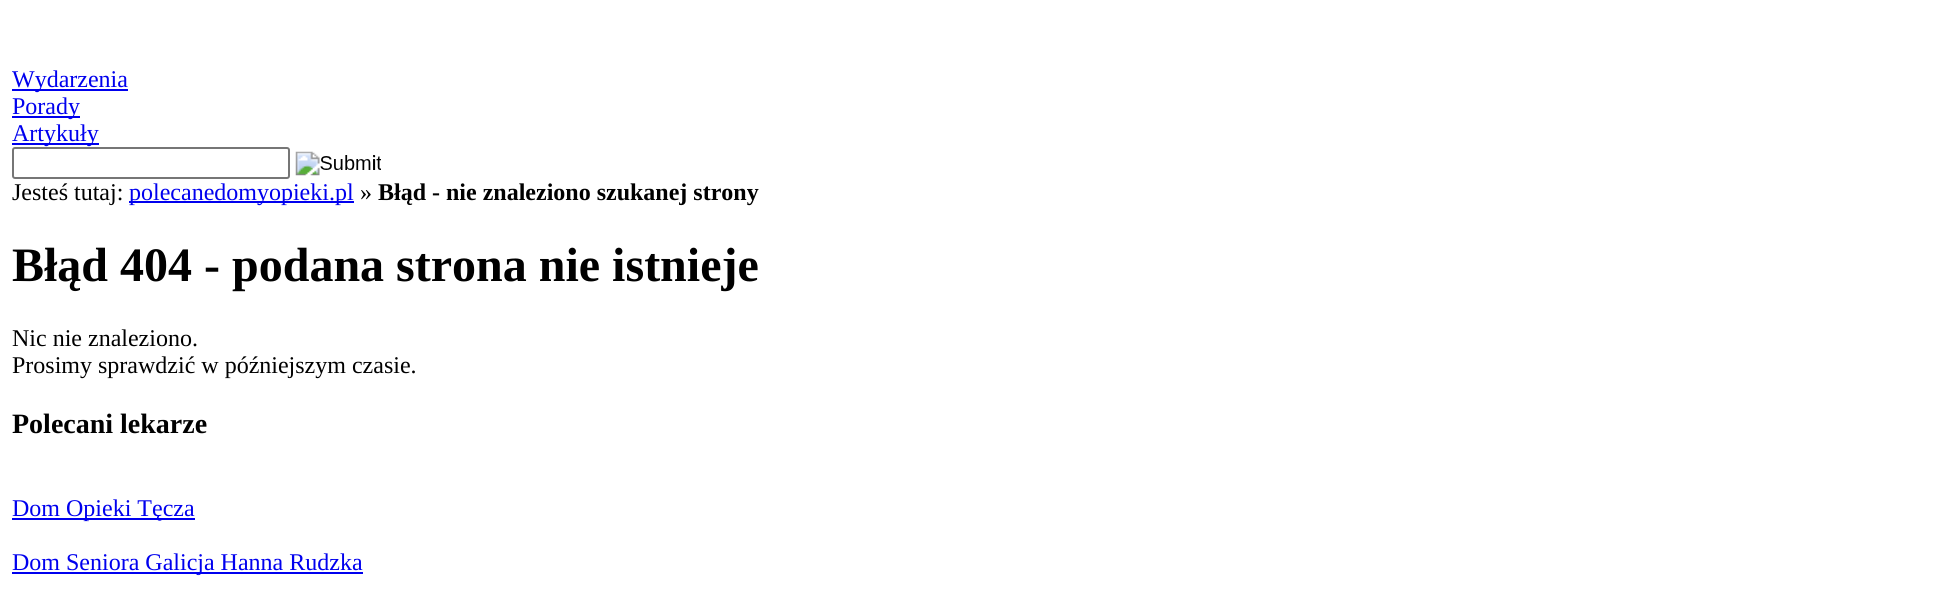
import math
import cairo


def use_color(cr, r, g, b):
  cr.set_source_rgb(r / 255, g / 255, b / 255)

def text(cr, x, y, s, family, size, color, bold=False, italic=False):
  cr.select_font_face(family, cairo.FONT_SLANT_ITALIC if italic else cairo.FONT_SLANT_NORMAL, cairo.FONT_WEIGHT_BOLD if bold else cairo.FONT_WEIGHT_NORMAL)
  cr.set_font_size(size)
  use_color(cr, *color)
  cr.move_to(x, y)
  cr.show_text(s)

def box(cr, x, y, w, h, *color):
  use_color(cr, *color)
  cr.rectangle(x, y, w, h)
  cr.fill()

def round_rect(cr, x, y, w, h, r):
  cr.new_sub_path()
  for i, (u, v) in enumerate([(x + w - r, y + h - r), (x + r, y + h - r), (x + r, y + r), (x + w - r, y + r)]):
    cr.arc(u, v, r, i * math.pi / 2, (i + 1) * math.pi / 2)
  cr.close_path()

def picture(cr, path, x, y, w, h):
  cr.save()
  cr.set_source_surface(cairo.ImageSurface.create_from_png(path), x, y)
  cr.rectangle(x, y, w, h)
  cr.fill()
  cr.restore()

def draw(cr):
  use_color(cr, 255, 255, 255)
  cr.paint()
  box(cr, 12, 89, 116, 2, 0, 0, 238)
  box(cr, 12, 116, 68, 2, 0, 0, 238)
  box(cr, 12, 143, 87, 2, 0, 0, 238)
  round_rect(cr, 13, 148, 276, 30, 2)
  use_color(cr, 118, 118, 118)
  cr.stroke()
  picture(cr, "img_01.png", 295, 151, 86, 25)
  box(cr, 129, 201, 225, 2, 0, 0, 238)
  box(cr, 12, 518, 183, 2, 0, 0, 238)
  box(cr, 12, 572, 351, 2, 0, 0, 238)
  text(cr, 12, 87, "Wydarzenia", "Liberation Serif", 24, (0, 0, 238))
  text(cr, 12, 114, "Porady", "Liberation Serif", 24, (0, 0, 238))
  text(cr, 12, 141, "Artykuły", "Liberation Serif", 24, (0, 0, 238))
  text(cr, 372, 170, "i", "Liberation Sans", 20, (0, 0, 0))
  text(cr, 12, 200, "Jesteś tutaj:", "Liberation Serif", 24, (0, 0, 0))
  text(cr, 129, 200, "polecanedomyopieki.pl", "Liberation Serif", 24, (0, 0, 238))
  text(cr, 360, 200, "»", "Liberation Serif", 24, (0, 0, 0))
  text(cr, 378, 200, "Błąd - nie znaleziono szukanej strony", "Liberation Serif", 24, (0, 0, 0), bold=True)
  text(cr, 12, 281, "Błąd 404 - podana strona nie istnieje", "Liberation Serif", 48, (0, 0, 0), bold=True)
  text(cr, 12, 346, "Nic nie znaleziono.", "Liberation Serif", 24, (0, 0, 0))
  text(cr, 12, 373, "Prosimy sprawdzić w późniejszym czasie.", "Liberation Serif", 24, (0, 0, 0))
  text(cr, 12, 433, "Polecani lekarze", "Liberation Serif", 28, (0, 0, 0), bold=True)
  text(cr, 12, 516, "Dom Opieki Tęcza", "Liberation Serif", 24, (0, 0, 238))
  text(cr, 12, 570, "Dom Seniora Galicja Hanna Rudzka", "Liberation Serif", 24, (0, 0, 238))


surface = cairo.ImageSurface(cairo.FORMAT_RGB24, 1954, 594)
cr = cairo.Context(surface)
options = cairo.FontOptions()
options.set_hint_metrics(cairo.HINT_METRICS_OFF)
options.set_hint_style(cairo.HINT_STYLE_NONE)
cr.set_font_options(options)
cr.set_miter_limit(4)
draw(cr)
surface.write_to_png("out.png")
